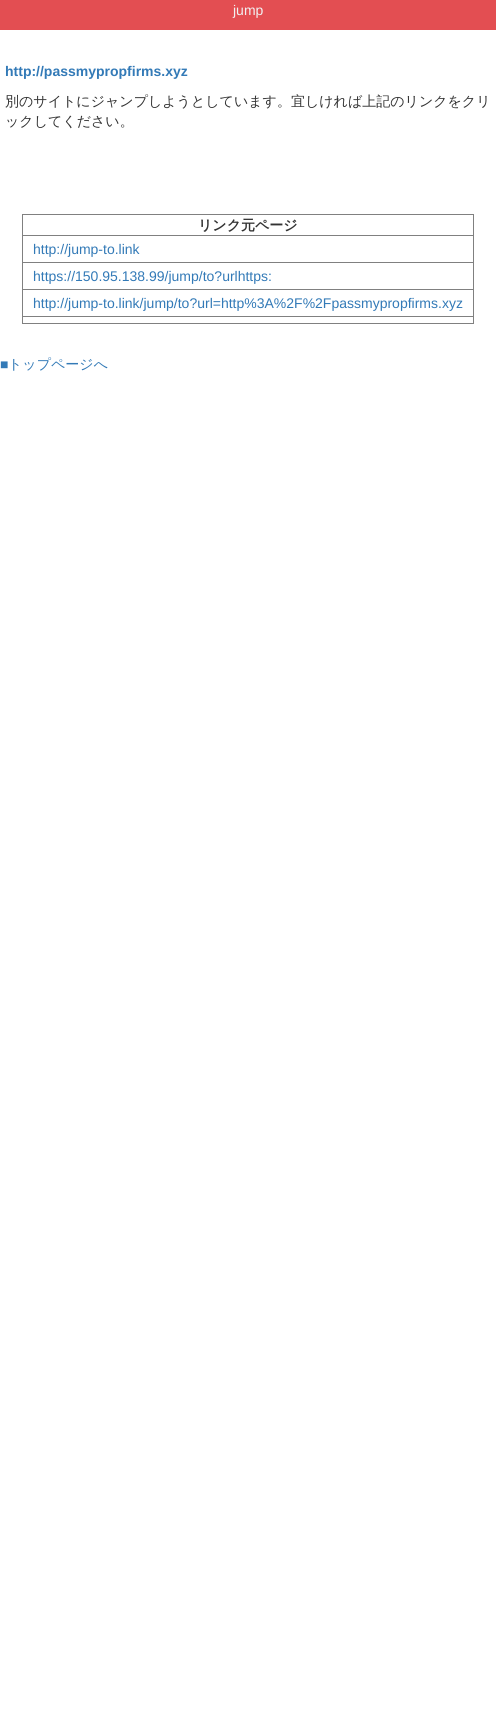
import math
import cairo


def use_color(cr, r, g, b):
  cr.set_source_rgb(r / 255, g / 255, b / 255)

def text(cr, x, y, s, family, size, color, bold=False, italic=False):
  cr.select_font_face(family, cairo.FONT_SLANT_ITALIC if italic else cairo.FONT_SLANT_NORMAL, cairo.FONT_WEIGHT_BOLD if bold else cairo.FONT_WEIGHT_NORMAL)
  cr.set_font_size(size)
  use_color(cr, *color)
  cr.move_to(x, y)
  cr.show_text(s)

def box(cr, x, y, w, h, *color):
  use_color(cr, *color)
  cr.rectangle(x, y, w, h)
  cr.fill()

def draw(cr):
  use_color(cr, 255, 255, 255)
  cr.paint()
  box(cr, 0, 0, 496, 30, 227, 78, 82)
  box(cr, 22, 214, 452, 1, 128, 128, 128)
  box(cr, 473, 214, 1, 110, 128, 128, 128)
  box(cr, 22, 323, 452, 1, 128, 128, 128)
  box(cr, 22, 214, 1, 110, 128, 128, 128)
  box(cr, 22, 235, 452, 1, 128, 128, 128)
  box(cr, 22, 262, 452, 1, 128, 128, 128)
  box(cr, 22, 289, 452, 1, 128, 128, 128)
  box(cr, 22, 316, 452, 1, 128, 128, 128)
  text(cr, 233, 15, "jump", "Liberation Sans", 14, (241, 241, 241))
  text(cr, 5, 76, "http://passmypropfirms.xyz", "Liberation Sans", 14, (51, 122, 183), bold=True)
  text(cr, 5, 106, "別のサイトにジャンプしようとしています。宜しければ上記のリンクをクリ", "WenQuanYi Zen Hei Medium", 14, (51, 51, 51))
  text(cr, 5, 126, "ックしてください。", "WenQuanYi Zen Hei Medium", 14, (51, 51, 51))
  text(cr, 198, 230, "リンク元ページ", "WenQuanYi Zen Hei", 14, (51, 51, 51), bold=True)
  text(cr, 33, 254, "http://jump-to.link", "Liberation Sans", 14, (51, 122, 183))
  text(cr, 33, 281, "https://150.95.138.99/jump/to?urlhttps:", "Liberation Sans", 14, (51, 122, 183))
  text(cr, 33, 308, "http://jump-to.link/jump/to?url=http%3A%2F%2Fpassmypropfirms.xyz", "Liberation Sans", 14, (51, 122, 183))
  text(cr, 0, 369, "■", "Liberation Sans", 14, (51, 122, 183))
  text(cr, 8, 369, "トップページへ", "WenQuanYi Zen Hei Medium", 14, (51, 122, 183))


surface = cairo.ImageSurface(cairo.FORMAT_RGB24, 496, 1717)
cr = cairo.Context(surface)
options = cairo.FontOptions()
options.set_hint_metrics(cairo.HINT_METRICS_OFF)
options.set_hint_style(cairo.HINT_STYLE_NONE)
cr.set_font_options(options)
cr.set_miter_limit(4)
draw(cr)
surface.write_to_png("out.png")
